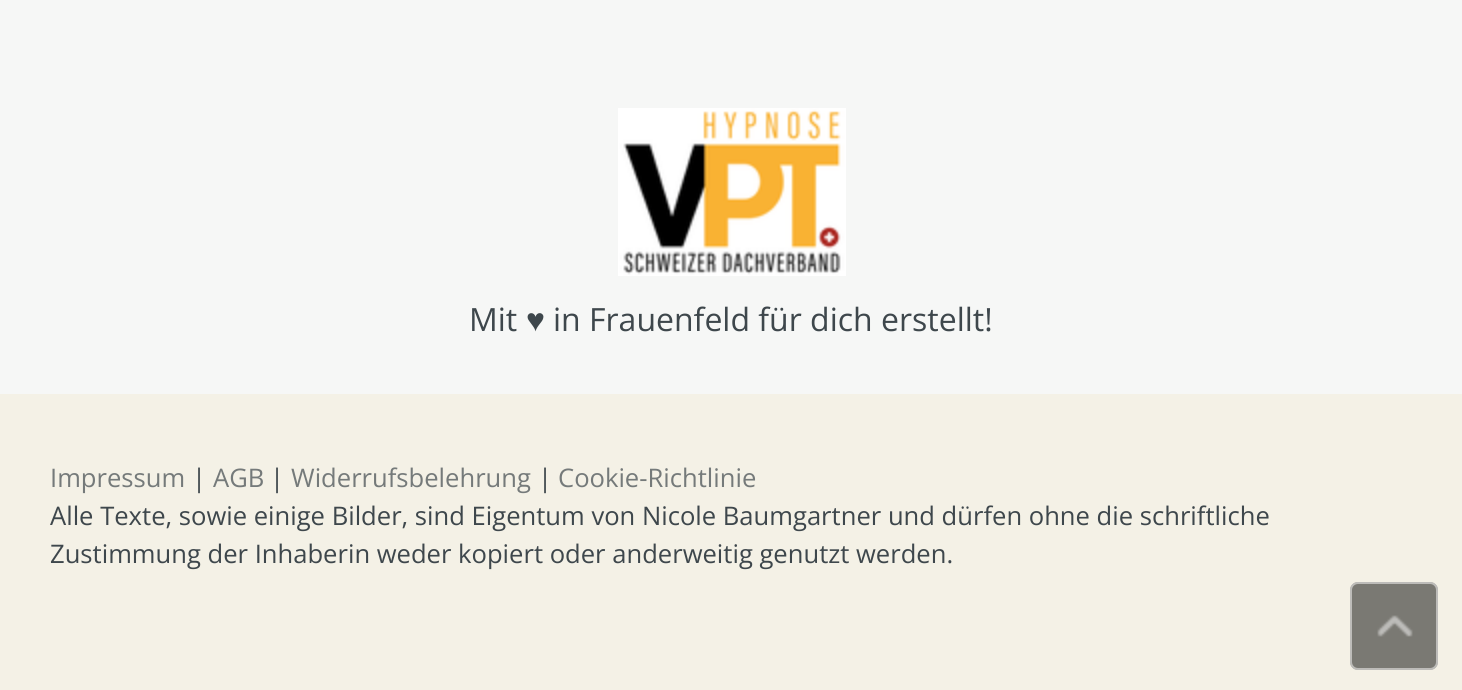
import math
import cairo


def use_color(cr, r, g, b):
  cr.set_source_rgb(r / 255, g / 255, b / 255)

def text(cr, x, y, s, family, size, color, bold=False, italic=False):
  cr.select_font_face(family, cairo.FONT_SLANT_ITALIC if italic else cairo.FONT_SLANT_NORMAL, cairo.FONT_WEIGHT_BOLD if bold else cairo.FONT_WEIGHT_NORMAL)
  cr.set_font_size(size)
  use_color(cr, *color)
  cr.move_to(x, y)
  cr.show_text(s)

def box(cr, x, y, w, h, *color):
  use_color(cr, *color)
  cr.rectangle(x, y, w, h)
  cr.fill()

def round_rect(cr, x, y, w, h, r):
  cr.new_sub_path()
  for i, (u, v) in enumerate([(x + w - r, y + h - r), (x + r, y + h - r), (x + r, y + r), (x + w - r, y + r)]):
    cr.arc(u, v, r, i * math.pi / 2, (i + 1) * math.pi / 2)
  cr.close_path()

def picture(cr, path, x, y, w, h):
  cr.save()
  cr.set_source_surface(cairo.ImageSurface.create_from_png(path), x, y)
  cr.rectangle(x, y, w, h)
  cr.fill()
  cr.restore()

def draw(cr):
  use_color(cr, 244, 241, 230)
  cr.paint()
  box(cr, 0, 0, 1462, 394, 246, 247, 246)
  picture(cr, "img_01.png", 618, 108, 228, 168)
  use_color(cr, 122, 121, 115)
  round_rect(cr, 1350, 582, 88, 88, 8)
  cr.fill()
  round_rect(cr, 1351, 583, 86, 86, 7)
  cr.set_source_rgba(1, 1, 1, 0.5)
  cr.stroke()
  picture(cr, "img_02.png", 1377, 615, 36, 22)
  text(cr, 469, 331, "Mit", "Open Sans", 32, (62, 71, 76))
  text(cr, 526, 331, "♥", "Liberation Sans", 32, (62, 71, 76))
  text(cr, 553, 331, "in Frauenfeld für dich erstellt!", "Open Sans", 32, (62, 71, 76))
  text(cr, 50, 487, "Impressum", "Open Sans", 25.6, (117, 122, 122))
  text(cr, 192, 487, "|", "Open Sans", 25.6, (62, 71, 76))
  text(cr, 213, 487, "AGB", "Open Sans", 25.6, (117, 122, 122))
  text(cr, 270, 487, "|", "Open Sans", 25.6, (62, 71, 76))
  text(cr, 291, 487, "Widerrufsbelehrung", "Open Sans", 25.6, (117, 122, 122))
  text(cr, 538, 487, "|", "Open Sans", 25.6, (62, 71, 76))
  text(cr, 558, 487, "Cookie-Richtlinie", "Open Sans", 25.6, (117, 122, 122))
  text(cr, 50, 525, "Alle Texte, sowie einige Bilder, sind Eigentum von Nicole Baumgartner und dürfen ohne die schriftliche", "Open Sans", 25.6, (62, 71, 76))
  text(cr, 50, 563, "Zustimmung der Inhaberin weder kopiert oder anderweitig genutzt werden.", "Open Sans", 25.6, (62, 71, 76))


surface = cairo.ImageSurface(cairo.FORMAT_RGB24, 1462, 690)
cr = cairo.Context(surface)
options = cairo.FontOptions()
options.set_hint_metrics(cairo.HINT_METRICS_OFF)
options.set_hint_style(cairo.HINT_STYLE_NONE)
cr.set_font_options(options)
cr.set_miter_limit(4)
draw(cr)
surface.write_to_png("out.png")
